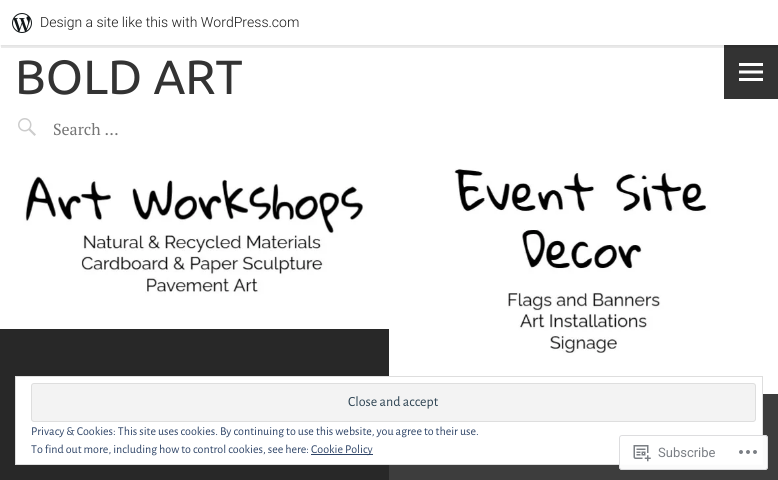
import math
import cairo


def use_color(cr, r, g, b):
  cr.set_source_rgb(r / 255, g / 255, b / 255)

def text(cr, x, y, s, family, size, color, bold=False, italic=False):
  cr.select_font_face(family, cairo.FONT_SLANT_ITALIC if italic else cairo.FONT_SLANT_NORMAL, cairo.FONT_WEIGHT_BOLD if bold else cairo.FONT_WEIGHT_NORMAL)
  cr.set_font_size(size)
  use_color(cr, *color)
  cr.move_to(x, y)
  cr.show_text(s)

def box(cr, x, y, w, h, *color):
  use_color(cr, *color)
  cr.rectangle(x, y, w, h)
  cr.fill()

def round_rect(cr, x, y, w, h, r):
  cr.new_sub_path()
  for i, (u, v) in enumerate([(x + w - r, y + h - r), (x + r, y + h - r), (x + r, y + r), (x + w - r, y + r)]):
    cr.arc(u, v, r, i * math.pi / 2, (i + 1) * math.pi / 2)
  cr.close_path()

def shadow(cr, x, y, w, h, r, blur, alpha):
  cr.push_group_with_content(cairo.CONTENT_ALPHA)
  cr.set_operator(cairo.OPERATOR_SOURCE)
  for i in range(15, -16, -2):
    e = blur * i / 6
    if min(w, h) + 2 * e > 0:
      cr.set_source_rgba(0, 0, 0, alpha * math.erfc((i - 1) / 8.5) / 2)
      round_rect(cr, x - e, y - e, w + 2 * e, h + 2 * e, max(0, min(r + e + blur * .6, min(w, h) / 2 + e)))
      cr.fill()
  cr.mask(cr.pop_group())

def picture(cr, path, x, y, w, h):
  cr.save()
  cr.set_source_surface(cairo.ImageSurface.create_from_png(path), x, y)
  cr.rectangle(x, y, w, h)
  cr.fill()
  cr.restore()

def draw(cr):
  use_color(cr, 255, 255, 255)
  cr.paint()
  box(cr, 724, 45, 54, 54, 51, 51, 51)
  use_color(cr, 0, 0, 0)
  shadow(cr, 0, 1, 778, 45, 0, 1, 0.05)
  cr.set_source_rgba(0, 0, 0, 0.08)
  cr.new_path()
  cr.move_to(1, 45)
  cr.line_to(1, 48)
  cr.line_to(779, 48)
  cr.line_to(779, 3)
  cr.line_to(778, 3)
  cr.line_to(778, 45)
  cr.close_path()
  cr.fill()
  box(cr, 0, 0, 778, 45, 255, 255, 255)
  picture(cr, "img_01.png", 12, 13, 20, 20)
  picture(cr, "img_02.png", 739, 63, 24, 18)
  picture(cr, "img_03.png", 18, 118, 18, 18)
  box(cr, 0, 329, 389, 151, 40, 40, 40)
  picture(cr, "img_04.png", 0, 150, 389, 179)
  box(cr, 389, 394, 389, 86, 61, 61, 61)
  picture(cr, "img_05.png", 389, 150, 389, 244)
  use_color(cr, 255, 255, 255)
  cr.rectangle(15.5, 376.5, 747, 88)
  cr.fill_preserve()
  use_color(cr, 222, 222, 222)
  cr.set_line_width(1)
  cr.stroke()
  use_color(cr, 243, 243, 243)
  round_rect(cr, 31.5, 383.5, 724, 38, 2.5)
  cr.fill_preserve()
  use_color(cr, 222, 222, 222)
  cr.stroke()
  box(cr, 311, 454, 62, 1, 46, 68, 103)
  cr.set_source_rgba(1, 1, 1, 0.98)
  round_rect(cr, 619, 435, 149, 35, 3)
  cr.fill()
  round_rect(cr, 619.5, 435.5, 148, 34, 2.5)
  cr.set_source_rgba(0.863, 0.863, 0.871, 0.98)
  cr.stroke()
  picture(cr, "img_06.png", 633, 445, 18, 17)
  picture(cr, "img_07.png", 739, 450, 18, 4)
  text(cr, 40, 27, "Design a site like this with WordPress.com", "Roboto Light", 14, (23, 23, 23))
  text(cr, 15, 94, "BOLD ART", "Ubuntu", 48, (51, 51, 51))
  text(cr, 53, 135, "Search …", "PT Serif", 16, (117, 117, 117))
  text(cr, 348, 406, "Close and accept", "Alegreya Sans", 14, (46, 68, 83))
  text(cr, 31, 435, "Privacy & Cookies: This site uses cookies. By continuing to use this website, you agree to their use.", "Alegreya Sans", 12, (46, 68, 103))
  text(cr, 31, 453, "To find out more, including how to control cookies, see here:", "Alegreya Sans", 12, (46, 68, 103))
  text(cr, 311, 453, "Cookie Policy", "Alegreya Sans", 12, (46, 68, 103))
  text(cr, 658, 457, "Subscribe", "Roboto", 13, (123, 127, 133))


surface = cairo.ImageSurface(cairo.FORMAT_RGB24, 778, 480)
cr = cairo.Context(surface)
options = cairo.FontOptions()
options.set_hint_metrics(cairo.HINT_METRICS_OFF)
options.set_hint_style(cairo.HINT_STYLE_NONE)
cr.set_font_options(options)
cr.set_miter_limit(4)
draw(cr)
surface.write_to_png("out.png")
